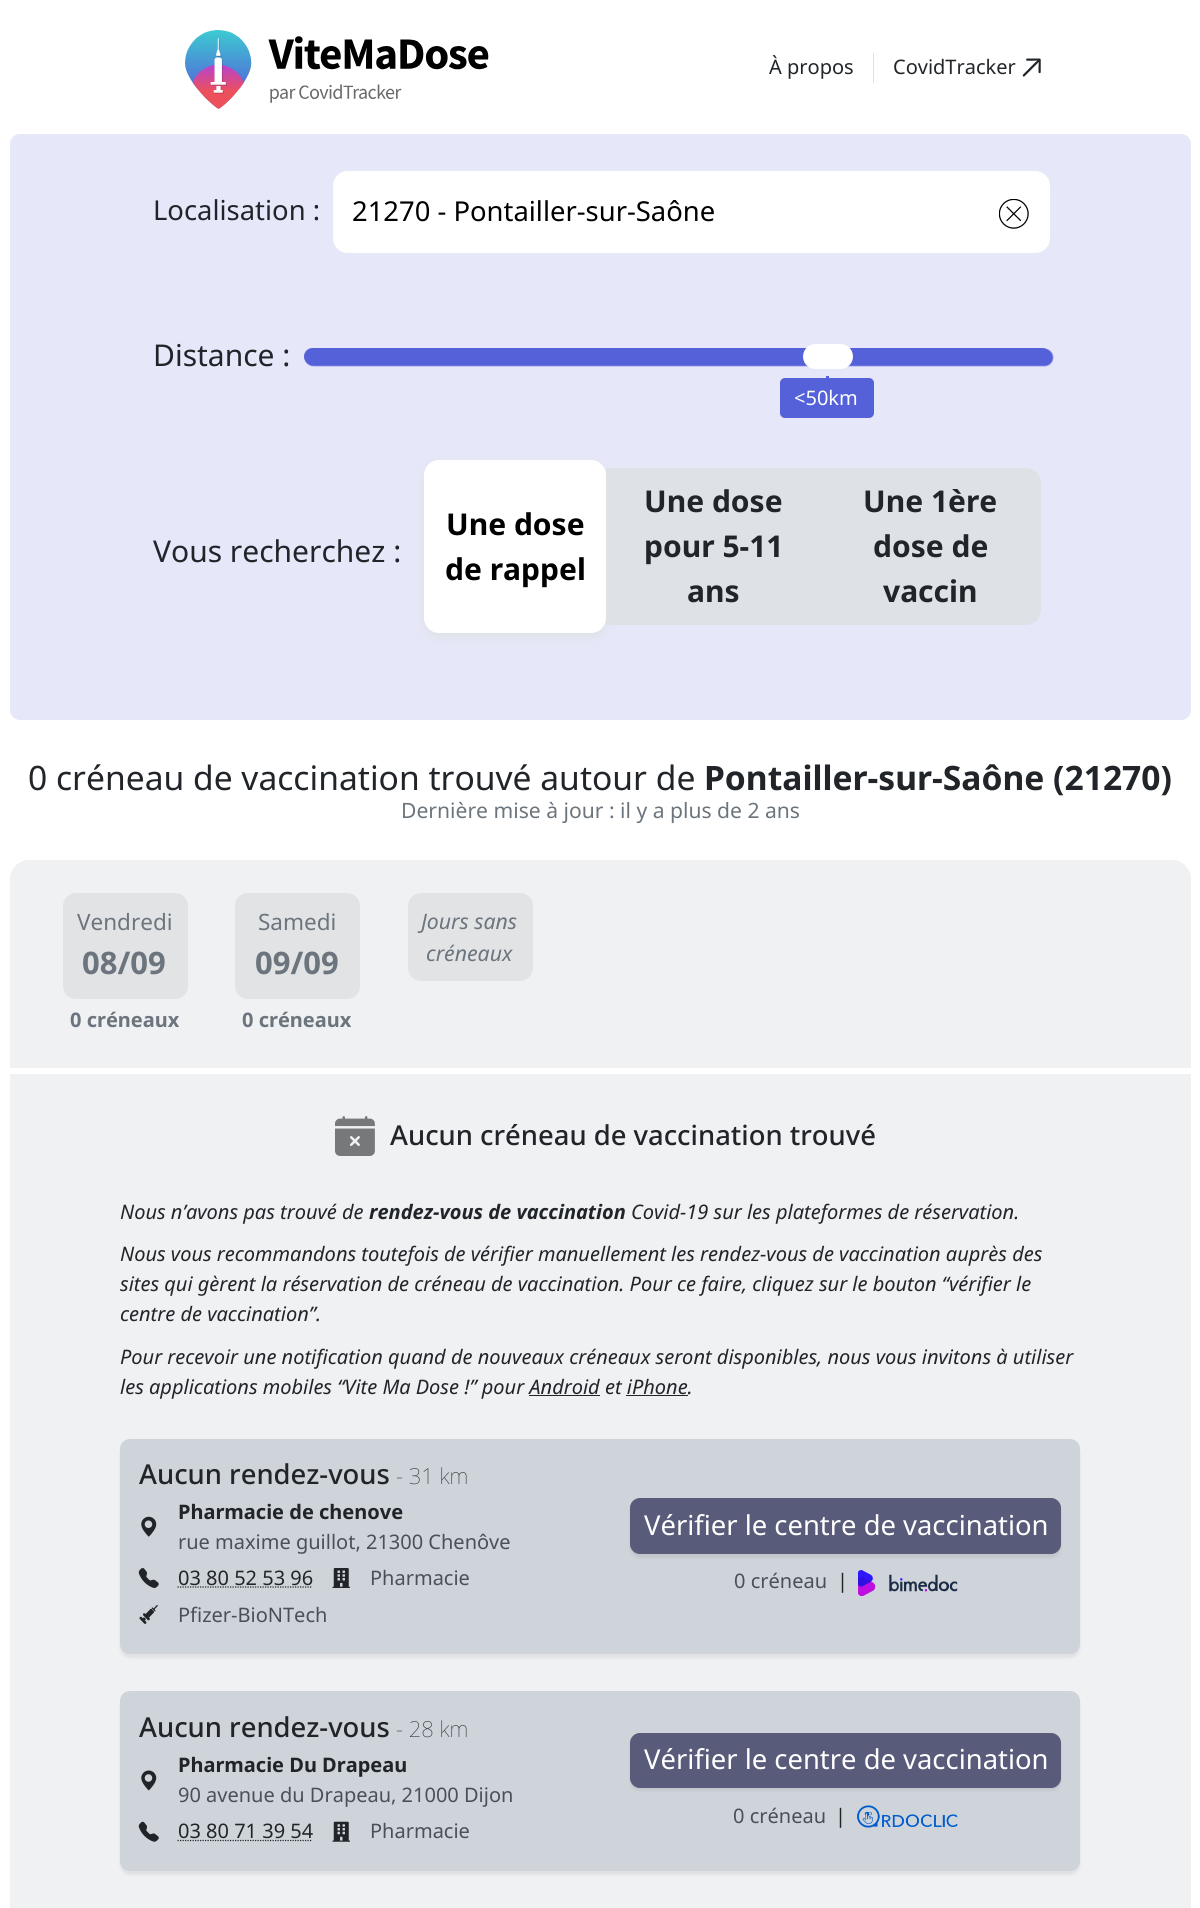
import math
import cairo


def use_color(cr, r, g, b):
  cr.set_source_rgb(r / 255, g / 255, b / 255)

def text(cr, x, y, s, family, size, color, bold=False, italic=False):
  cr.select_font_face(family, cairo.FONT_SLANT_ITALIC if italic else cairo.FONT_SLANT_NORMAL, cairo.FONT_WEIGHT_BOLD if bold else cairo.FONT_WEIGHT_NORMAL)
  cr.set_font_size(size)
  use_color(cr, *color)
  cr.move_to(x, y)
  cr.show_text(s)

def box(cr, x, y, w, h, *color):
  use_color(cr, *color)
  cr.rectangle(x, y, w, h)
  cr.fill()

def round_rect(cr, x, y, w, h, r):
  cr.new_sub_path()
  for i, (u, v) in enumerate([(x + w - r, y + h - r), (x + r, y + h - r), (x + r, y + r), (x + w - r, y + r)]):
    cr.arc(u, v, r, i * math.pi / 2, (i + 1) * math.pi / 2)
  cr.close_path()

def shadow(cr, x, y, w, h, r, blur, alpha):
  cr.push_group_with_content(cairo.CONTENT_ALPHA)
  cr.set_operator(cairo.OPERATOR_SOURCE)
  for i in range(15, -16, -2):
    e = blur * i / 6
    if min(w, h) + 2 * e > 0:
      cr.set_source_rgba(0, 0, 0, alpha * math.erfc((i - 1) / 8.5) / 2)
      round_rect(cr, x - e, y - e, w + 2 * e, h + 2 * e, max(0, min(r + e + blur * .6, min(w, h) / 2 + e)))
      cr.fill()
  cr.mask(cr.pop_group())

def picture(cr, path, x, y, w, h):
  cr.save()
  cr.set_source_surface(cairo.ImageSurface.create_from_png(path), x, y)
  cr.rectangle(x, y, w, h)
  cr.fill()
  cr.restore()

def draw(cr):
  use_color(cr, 255, 255, 255)
  cr.paint()
  picture(cr, "img_01.png", 184, 30, 305, 79)
  box(cr, 873, 53, 1, 30, 222, 226, 230)
  picture(cr, "img_02.png", 1022, 58, 19, 19)
  use_color(cr, 230, 231, 249)
  round_rect(cr, 10, 134, 1181, 586, 10)
  cr.fill()
  use_color(cr, 255, 255, 255)
  cr.new_path()
  cr.move_to(348, 171)
  cr.line_to(979, 171)
  cr.line_to(979, 253)
  cr.line_to(348, 253)
  cr.curve_to(339.5, 253, 333, 246.5, 333, 238)
  cr.line_to(333, 186)
  cr.curve_to(333, 177.5, 339.5, 171, 348, 171)
  cr.close_path()
  cr.fill()
  cr.new_path()
  cr.move_to(979, 171)
  cr.line_to(1035, 171)
  cr.curve_to(1043.5, 171, 1050, 177.5, 1050, 186)
  cr.line_to(1050, 238)
  cr.curve_to(1050, 246.5, 1043.5, 253, 1035, 253)
  cr.line_to(979, 253)
  cr.close_path()
  cr.fill()
  picture(cr, "img_03.png", 999, 199, 30, 30)
  use_color(cr, 85, 97, 217)
  shadow(cr, 305, 349, 748, 17, 8.5, 0.5, 1)
  use_color(cr, 85, 97, 217)
  round_rect(cr, 304, 348, 747, 17, 8.5)
  cr.fill()
  use_color(cr, 255, 255, 255)
  round_rect(cr, 803, 344, 50, 25, 12.5)
  cr.fill()
  use_color(cr, 85, 97, 217)
  round_rect(cr, 780, 378, 94, 40, 5)
  cr.fill()
  box(cr, 826, 376, 3, 2, 85, 97, 217)
  use_color(cr, 222, 226, 230)
  shadow(cr, 424, 465, 182, 173, 15, 5, 1)
  use_color(cr, 255, 255, 255)
  round_rect(cr, 424, 460, 182, 173, 15)
  cr.fill()
  box(cr, 606, 468, 214, 157, 222, 226, 230)
  cr.new_path()
  cr.move_to(820, 468)
  cr.line_to(1026, 468)
  cr.curve_to(1034.5, 468, 1041, 474.5, 1041, 483)
  cr.line_to(1041, 610)
  cr.curve_to(1041, 618.5, 1034.5, 625, 1026, 625)
  cr.line_to(820, 625)
  cr.close_path()
  cr.fill()
  use_color(cr, 239, 241, 243)
  cr.new_path()
  cr.move_to(29, 860)
  cr.line_to(1172, 860)
  cr.curve_to(1182.5, 860, 1191, 868.5, 1191, 879)
  cr.line_to(1191, 1068)
  cr.line_to(10, 1068)
  cr.line_to(10, 879)
  cr.curve_to(10, 868.5, 18.5, 860, 29, 860)
  cr.close_path()
  cr.fill()
  use_color(cr, 226, 227, 229)
  round_rect(cr, 63, 893, 125, 106, 13)
  cr.fill()
  round_rect(cr, 235, 893, 125, 106, 13)
  cr.fill()
  round_rect(cr, 408, 893, 125, 88, 13)
  cr.fill()
  box(cr, 10, 1074, 1181, 834, 239, 241, 243)
  picture(cr, "img_04.png", 335, 1116, 40, 40)
  box(cr, 529, 1395, 71, 1, 33, 37, 41)
  box(cr, 626, 1395, 62, 1, 33, 37, 41)
  use_color(cr, 0, 0, 0)
  shadow(cr, 120, 1443, 960, 215, 10, 1.5, 0.07)
  use_color(cr, 206, 212, 218)
  round_rect(cr, 120, 1439, 960, 215, 10)
  cr.fill()
  picture(cr, "img_05.png", 141, 1516, 16, 21)
  picture(cr, "img_06.png", 138, 1568, 21, 20)
  cr.new_path()
  cr.move_to(177.5, 1587)
  cr.line_to(312.5, 1587)
  use_color(cr, 33, 37, 41)
  cr.set_line_width(1.2)
  cr.set_dash([1.25, 1.25])
  cr.stroke()
  picture(cr, "img_07.png", 332, 1568, 18, 20)
  picture(cr, "img_08.png", 139, 1605, 19, 19)
  use_color(cr, 0, 0, 0)
  shadow(cr, 630, 1501, 431, 57, 10, 1.5, 0.07)
  use_color(cr, 88, 91, 121)
  round_rect(cr, 630.5, 1498.5, 430, 55, 9.5)
  cr.fill_preserve()
  cr.set_line_width(1)
  cr.set_dash([])
  cr.stroke()
  picture(cr, "img_09.png", 858, 1570, 100, 26)
  use_color(cr, 0, 0, 0)
  shadow(cr, 120, 1695, 960, 180, 10, 1.5, 0.07)
  use_color(cr, 206, 212, 218)
  round_rect(cr, 120, 1691, 960, 180, 10)
  cr.fill()
  picture(cr, "img_10.png", 141, 1770, 16, 21)
  picture(cr, "img_11.png", 138, 1821, 21, 21)
  cr.new_path()
  cr.move_to(177.5, 1840.5)
  cr.line_to(312.5, 1840.5)
  use_color(cr, 33, 37, 41)
  cr.set_line_width(1.2)
  cr.set_dash([1.25, 1.25])
  cr.stroke()
  picture(cr, "img_12.png", 332, 1821, 18, 21)
  use_color(cr, 0, 0, 0)
  shadow(cr, 630, 1736, 431, 55, 10, 1.5, 0.07)
  use_color(cr, 88, 91, 121)
  round_rect(cr, 630.5, 1733.5, 430, 54, 9.5)
  cr.fill_preserve()
  cr.set_line_width(1)
  cr.set_dash([])
  cr.stroke()
  picture(cr, "img_13.png", 857, 1805, 101, 23)
  text(cr, 769, 74, "À propos", "Noto Sans", 20, (33, 37, 41))
  text(cr, 893, 74, "CovidTracker", "Noto Sans", 20, (33, 37, 41))
  text(cr, 153, 220, "Localisation :", "Noto Sans", 27.4, (33, 37, 41))
  text(cr, 352, 221, "21270 - Pontailler-sur-Saône", "Noto Sans", 27.4, (0, 0, 0))
  text(cr, 153, 366, "Distance :", "Noto Sans", 30, (33, 37, 41))
  text(cr, 794, 405, "<50km", "Noto Sans", 20, (255, 255, 255))
  text(cr, 153, 562, "Vous recherchez :", "Noto Sans", 30, (33, 37, 41))
  text(cr, 446, 535, "Une dose", "Noto Sans", 30, (0, 0, 0), bold=True)
  text(cr, 445, 580, "de rappel", "Noto Sans", 30, (0, 0, 0), bold=True)
  text(cr, 644, 512, "Une dose", "Noto Sans", 30, (33, 37, 41), bold=True)
  text(cr, 644, 557, "pour 5-11", "Noto Sans", 30, (33, 37, 41), bold=True)
  text(cr, 687, 602, "ans", "Noto Sans", 30, (33, 37, 41), bold=True)
  text(cr, 863, 512, "Une 1ère", "Noto Sans", 30, (33, 37, 41), bold=True)
  text(cr, 873, 557, "dose de", "Noto Sans", 30, (33, 37, 41), bold=True)
  text(cr, 883, 602, "vaccin", "Noto Sans", 30, (33, 37, 41), bold=True)
  text(cr, 28, 790, "0 créneau de vaccination trouvé autour de", "Noto Sans", 33.6, (33, 37, 41))
  text(cr, 704, 790, "Pontailler-sur-Saône (21270)", "Noto Sans", 33.6, (33, 37, 41), bold=True)
  text(cr, 401, 818, "Dernière mise à jour : il y a plus de 2 ans", "Noto Sans", 21.1, (108, 117, 125))
  text(cr, 77, 930, "Vendredi", "Noto Sans", 22.5, (108, 117, 125))
  text(cr, 82, 974, "08/09", "Noto Sans", 31, (108, 117, 125), bold=True)
  text(cr, 70, 1027, "0 créneaux", "Noto Sans", 20, (108, 117, 125), bold=True)
  text(cr, 258, 930, "Samedi", "Noto Sans", 22.5, (108, 117, 125))
  text(cr, 255, 974, "09/09", "Noto Sans", 31, (108, 117, 125), bold=True)
  text(cr, 242, 1027, "0 créneaux", "Noto Sans", 20, (108, 117, 125), bold=True)
  text(cr, 421, 929, "Jours sans", "Noto Sans", 21.25, (108, 117, 125), italic=True)
  text(cr, 426, 961, "créneaux", "Noto Sans", 21.25, (108, 117, 125), italic=True)
  text(cr, 390, 1145, "Aucun créneau de vaccination trouvé", "Noto Sans Medium", 27.4, (33, 37, 41))
  text(cr, 120, 1219, "Nous n’avons pas trouvé de", "Noto Sans", 20, (33, 37, 41), italic=True)
  text(cr, 369, 1219, "rendez-vous de vaccination", "Noto Sans", 20, (33, 37, 41), bold=True, italic=True)
  text(cr, 631, 1219, "Covid-19 sur les plateformes de réservation.", "Noto Sans", 20, (33, 37, 41), italic=True)
  text(cr, 120, 1261, "Nous vous recommandons toutefois de vérifier manuellement les rendez-vous de vaccination auprès des", "Noto Sans", 20, (33, 37, 41), italic=True)
  text(cr, 120, 1291, "sites qui gèrent la réservation de créneau de vaccination. Pour ce faire, cliquez sur le bouton “vérifier le", "Noto Sans", 20, (33, 37, 41), italic=True)
  text(cr, 120, 1321, "centre de vaccination”.", "Noto Sans", 20, (33, 37, 41), italic=True)
  text(cr, 120, 1364, "Pour recevoir une notification quand de nouveaux créneaux seront disponibles, nous vous invitons à utiliser", "Noto Sans", 20, (33, 37, 41), italic=True)
  text(cr, 120, 1394, "les applications mobiles “Vite Ma Dose !” pour Android et iPhone.", "Noto Sans", 20, (33, 37, 41), italic=True)
  text(cr, 139, 1484, "Aucun rendez-vous", "Noto Sans Medium", 27.4, (33, 37, 41))
  text(cr, 396, 1484, "- 31 km", "Noto Sans Thin", 22, (33, 37, 41))
  text(cr, 178, 1519, "Pharmacie de chenove", "Noto Sans", 20, (33, 37, 41), bold=True)
  text(cr, 178, 1549, "rue maxime guillot, 21300 Chenôve", "Noto Sans", 20, (73, 80, 87))
  text(cr, 178, 1585, "03 80 52 53 96", "Noto Sans", 20, (33, 37, 41))
  text(cr, 370, 1585, "Pharmacie", "Noto Sans", 20, (73, 80, 87))
  text(cr, 178, 1622, "Pfizer-BioNTech", "Noto Sans", 20, (73, 80, 87))
  text(cr, 644, 1535, "Vérifier le centre de vaccination", "Noto Sans", 27.4, (255, 255, 255))
  text(cr, 734, 1588, "0 créneau", "Noto Sans", 20, (73, 80, 87))
  text(cr, 837, 1588, "|", "Noto Sans", 20, (33, 37, 41))
  text(cr, 139, 1737, "Aucun rendez-vous", "Noto Sans Medium", 27.4, (33, 37, 41))
  text(cr, 396, 1737, "- 28 km", "Noto Sans Thin", 22, (33, 37, 41))
  text(cr, 178, 1772, "Pharmacie Du Drapeau", "Noto Sans", 20, (33, 37, 41), bold=True)
  text(cr, 178, 1802, "90 avenue du Drapeau, 21000 Dijon", "Noto Sans", 20, (73, 80, 87))
  text(cr, 178, 1838, "03 80 71 39 54", "Noto Sans", 20, (33, 37, 41))
  text(cr, 370, 1838, "Pharmacie", "Noto Sans", 20, (73, 80, 87))
  text(cr, 644, 1769, "Vérifier le centre de vaccination", "Noto Sans", 27.4, (255, 255, 255))
  text(cr, 733, 1823, "0 créneau", "Noto Sans", 20, (73, 80, 87))
  text(cr, 835, 1823, "|", "Noto Sans", 20, (33, 37, 41))


surface = cairo.ImageSurface(cairo.FORMAT_RGB24, 1200, 1908)
cr = cairo.Context(surface)
options = cairo.FontOptions()
options.set_hint_metrics(cairo.HINT_METRICS_OFF)
options.set_hint_style(cairo.HINT_STYLE_NONE)
cr.set_font_options(options)
cr.set_miter_limit(4)
draw(cr)
surface.write_to_png("out.png")
